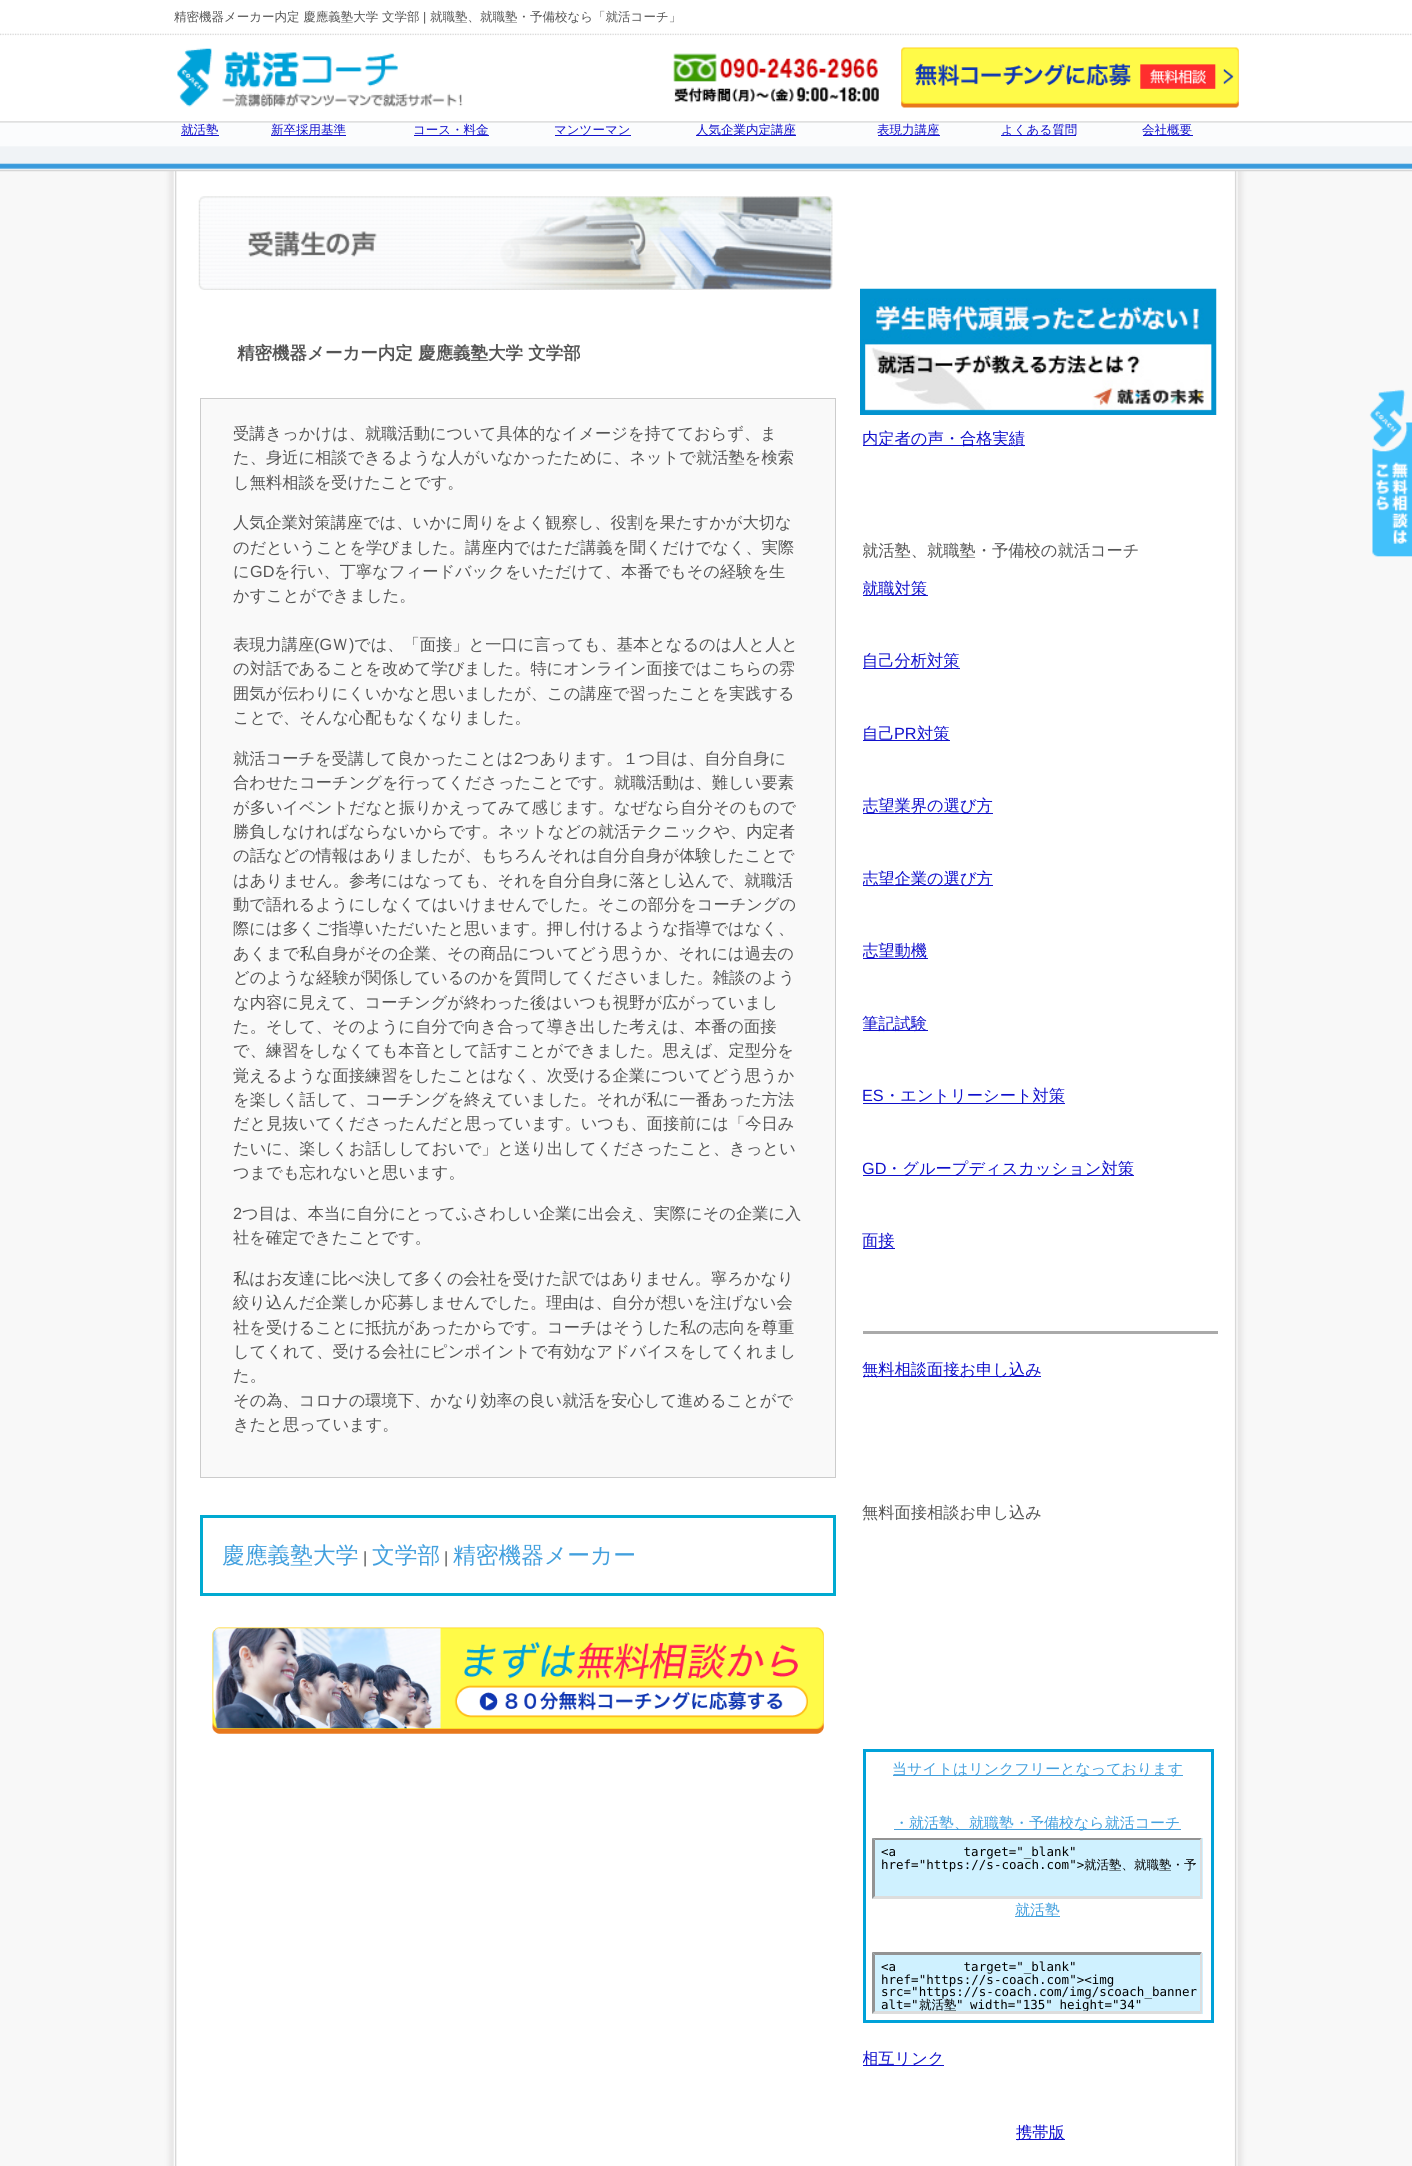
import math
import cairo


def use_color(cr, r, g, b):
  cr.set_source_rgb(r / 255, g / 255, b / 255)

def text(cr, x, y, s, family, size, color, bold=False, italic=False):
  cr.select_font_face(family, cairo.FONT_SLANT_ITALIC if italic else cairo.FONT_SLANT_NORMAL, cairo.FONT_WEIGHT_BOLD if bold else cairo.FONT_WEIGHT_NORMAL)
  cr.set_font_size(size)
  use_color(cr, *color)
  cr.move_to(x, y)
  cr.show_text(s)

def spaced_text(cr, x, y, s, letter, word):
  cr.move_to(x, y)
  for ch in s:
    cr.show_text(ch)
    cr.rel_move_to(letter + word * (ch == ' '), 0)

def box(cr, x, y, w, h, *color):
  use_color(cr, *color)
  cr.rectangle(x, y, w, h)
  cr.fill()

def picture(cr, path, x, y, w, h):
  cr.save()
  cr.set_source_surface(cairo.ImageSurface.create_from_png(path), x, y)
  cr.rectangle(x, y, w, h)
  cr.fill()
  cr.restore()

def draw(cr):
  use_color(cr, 255, 255, 255)
  cr.paint()
  picture(cr, "img_01.png", 0, 171, 1412, 1995)
  picture(cr, "img_02.png", 0, 33, 1412, 139)
  picture(cr, "img_03.png", 177, 48, 286, 59)
  picture(cr, "img_04.png", 673, 53, 206, 50)
  picture(cr, "img_05.png", 901, 47, 338, 61)
  box(cr, 181, 135, 38, 1, 17, 17, 204)
  box(cr, 271, 135, 75, 1, 17, 17, 204)
  box(cr, 414, 135, 75, 1, 17, 17, 204)
  box(cr, 555, 135, 76, 1, 17, 17, 204)
  box(cr, 696, 135, 100, 1, 17, 17, 204)
  box(cr, 878, 135, 62, 1, 17, 17, 204)
  box(cr, 1001, 135, 75, 1, 17, 17, 204)
  box(cr, 1143, 135, 50, 1, 17, 17, 204)
  picture(cr, "img_06.png", 198, 196, 635, 94)
  use_color(cr, 249, 249, 249)
  cr.rectangle(200.5, 398.5, 635, 1079)
  cr.fill_preserve()
  use_color(cr, 204, 204, 204)
  cr.set_line_width(1)
  cr.stroke()
  cr.rectangle(201.5, 1516.5, 633, 78)
  use_color(cr, 0, 170, 209)
  cr.set_line_width(3)
  cr.stroke()
  picture(cr, "img_07.png", 212, 1627, 612, 107)
  picture(cr, "img_08.png", 860, 288, 357, 127)
  box(cr, 863, 445, 162, 1, 17, 17, 204)
  box(cr, 863, 595, 65, 1, 17, 17, 204)
  box(cr, 863, 668, 97, 1, 17, 17, 204)
  box(cr, 863, 740, 87, 1, 17, 17, 204)
  box(cr, 863, 813, 130, 1, 17, 17, 204)
  box(cr, 863, 885, 130, 1, 17, 17, 204)
  box(cr, 863, 958, 65, 1, 17, 17, 204)
  box(cr, 863, 1030, 65, 1, 17, 17, 204)
  box(cr, 863, 1103, 202, 1, 17, 17, 204)
  box(cr, 863, 1175, 271, 1, 17, 17, 204)
  box(cr, 863, 1248, 32, 1, 17, 17, 204)
  box(cr, 863, 1331, 355, 3, 170, 170, 170)
  box(cr, 863, 1376, 178, 1, 17, 17, 204)
  cr.rectangle(864.5, 1750.5, 348, 271)
  use_color(cr, 0, 162, 217)
  cr.stroke()
  box(cr, 893, 1775, 290, 1, 67, 160, 222)
  box(cr, 894, 1829, 287, 1, 67, 160, 222)
  box(cr, 873, 1838, 330, 61, 207, 241, 255)
  use_color(cr, 147, 147, 147)
  cr.new_path()
  cr.move_to(872, 1838)
  cr.line_to(1202, 1838)
  cr.line_to(1200, 1840)
  cr.line_to(875, 1840)
  cr.close_path()
  cr.fill()
  use_color(cr, 221, 221, 221)
  cr.new_path()
  cr.move_to(1202, 1838)
  cr.line_to(1202, 1899)
  cr.line_to(1200, 1896)
  cr.line_to(1200, 1840)
  cr.close_path()
  cr.fill()
  cr.new_path()
  cr.move_to(1202, 1899)
  cr.line_to(872, 1899)
  cr.line_to(875, 1896)
  cr.line_to(1200, 1896)
  cr.close_path()
  cr.fill()
  use_color(cr, 147, 147, 147)
  cr.new_path()
  cr.move_to(872, 1899)
  cr.line_to(872, 1838)
  cr.line_to(875, 1840)
  cr.line_to(875, 1896)
  cr.close_path()
  cr.fill()
  box(cr, 1015, 1916, 45, 1, 67, 160, 222)
  box(cr, 873, 1953, 330, 61, 207, 241, 255)
  use_color(cr, 147, 147, 147)
  cr.new_path()
  cr.move_to(872, 1952)
  cr.line_to(1202, 1952)
  cr.line_to(1200, 1955)
  cr.line_to(875, 1955)
  cr.close_path()
  cr.fill()
  use_color(cr, 221, 221, 221)
  cr.new_path()
  cr.move_to(1202, 1952)
  cr.line_to(1202, 2014)
  cr.line_to(1200, 2011)
  cr.line_to(1200, 1955)
  cr.close_path()
  cr.fill()
  cr.new_path()
  cr.move_to(1202, 2014)
  cr.line_to(872, 2014)
  cr.line_to(875, 2011)
  cr.line_to(1200, 2011)
  cr.close_path()
  cr.fill()
  use_color(cr, 147, 147, 147)
  cr.new_path()
  cr.move_to(872, 2014)
  cr.line_to(872, 1952)
  cr.line_to(875, 1955)
  cr.line_to(875, 2011)
  cr.close_path()
  cr.fill()
  box(cr, 863, 2065, 81, 1, 17, 17, 204)
  box(cr, 1016, 2139, 49, 1, 17, 17, 204)
  picture(cr, "img_09.png", 1369, 389, 43, 168)
  text(cr, 174, 21, "精密機器メーカー内定 慶應義塾大学 文学部", "WenQuanYi Zen Hei Medium", 12.5, (85, 85, 85))
  text(cr, 423, 21, "|", "Liberation Sans", 12.5, (85, 85, 85))
  text(cr, 430, 21, "就職塾、就職塾・予備校なら「就活コーチ」", "WenQuanYi Zen Hei Medium", 12.5, (85, 85, 85))
  text(cr, 181, 134, "就活塾", "WenQuanYi Zen Hei Medium", 12.5, (17, 17, 204))
  text(cr, 271, 134, "新卒採用基準", "WenQuanYi Zen Hei Medium", 12.5, (17, 17, 204))
  text(cr, 413, 134, "コース・料金", "WenQuanYi Zen Hei Medium", 12.5, (17, 17, 204))
  text(cr, 554, 134, "マンツーマン", "WenQuanYi Zen Hei Medium", 12.5, (17, 17, 204))
  text(cr, 696, 134, "人気企業内定講座", "WenQuanYi Zen Hei Medium", 12.5, (17, 17, 204))
  text(cr, 877, 134, "表現力講座", "WenQuanYi Zen Hei Medium", 12.5, (17, 17, 204))
  text(cr, 1001, 134, "よくある質問", "WenQuanYi Zen Hei Medium", 12.5, (17, 17, 204))
  text(cr, 1142, 134, "会社概要", "WenQuanYi Zen Hei Medium", 12.5, (17, 17, 204))
  text(cr, 237, 359, "精密機器メーカー内定 慶應義塾大学 文学部", "WenQuanYi Zen Hei", 17.5, (85, 85, 85), bold=True)
  text(cr, 233, 439, "受講きっかけは、就職活動について具体的なイメージを持てておらず、ま", "WenQuanYi Zen Hei Medium", 16.25, (85, 85, 85))
  text(cr, 233, 463, "た、身近に相談できるような人がいなかったために、ネットで就活塾を検索", "WenQuanYi Zen Hei Medium", 16.25, (85, 85, 85))
  text(cr, 233, 488, "し無料相談を受けたことです。", "WenQuanYi Zen Hei Medium", 16.25, (85, 85, 85))
  text(cr, 233, 528, "人気企業対策講座では、いかに周りをよく観察し、役割を果たすかが大切な", "WenQuanYi Zen Hei Medium", 16.25, (85, 85, 85))
  text(cr, 233, 553, "のだということを学びました。講座内ではただ講義を聞くだけでなく、実際", "WenQuanYi Zen Hei Medium", 16.25, (85, 85, 85))
  text(cr, 233, 577, "に", "WenQuanYi Zen Hei Medium", 16.25, (85, 85, 85))
  text(cr, 250, 577, "GD", "Liberation Sans", 16.25, (85, 85, 85))
  text(cr, 274, 577, "を行い、丁寧なフィードバックをいただけて、本番でもその経験を生", "WenQuanYi Zen Hei Medium", 16.25, (85, 85, 85))
  text(cr, 233, 601, "かすことができました。", "WenQuanYi Zen Hei Medium", 16.25, (85, 85, 85))
  text(cr, 233, 650, "表現力講座", "WenQuanYi Zen Hei Medium", 16.25, (85, 85, 85))
  text(cr, 314, 650, "(G", "Liberation Sans", 16.25, (85, 85, 85))
  text(cr, 332, 650, "Ｗ", "WenQuanYi Zen Hei Medium", 16.25, (85, 85, 85))
  text(cr, 349, 650, ")", "Liberation Sans", 16.25, (85, 85, 85))
  text(cr, 354, 650, "では、「面接」と一口に言っても、基本となるのは人と人と", "WenQuanYi Zen Hei Medium", 16.25, (85, 85, 85))
  text(cr, 233, 674, "の対話であることを改めて学びました。特にオンライン面接ではこちらの雰", "WenQuanYi Zen Hei Medium", 16.25, (85, 85, 85))
  text(cr, 233, 699, "囲気が伝わりにくいかなと思いましたが、この講座で習ったことを実践する", "WenQuanYi Zen Hei Medium", 16.25, (85, 85, 85))
  text(cr, 233, 723, "ことで、そんな心配もなくなりました。", "WenQuanYi Zen Hei Medium", 16.25, (85, 85, 85))
  text(cr, 233, 764, "就活コーチを受講して良かったことは", "WenQuanYi Zen Hei Medium", 16.25, (85, 85, 85))
  text(cr, 514, 764, "2", "Liberation Sans", 16.25, (85, 85, 85))
  text(cr, 523, 764, "つあります。１つ目は、自分自身に", "WenQuanYi Zen Hei Medium", 16.25, (85, 85, 85))
  text(cr, 233, 788, "合わせたコーチングを行ってくださったことです。就職活動は、難しい要素", "WenQuanYi Zen Hei Medium", 16.25, (85, 85, 85))
  text(cr, 233, 813, "が多いイベントだなと振りかえってみて感じます。なぜなら自分そのもので", "WenQuanYi Zen Hei Medium", 16.25, (85, 85, 85))
  text(cr, 233, 837, "勝負しなければならないからです。ネットなどの就活テクニックや、内定者", "WenQuanYi Zen Hei Medium", 16.25, (85, 85, 85))
  text(cr, 233, 861, "の話などの情報はありましたが、もちろんそれは自分自身が体験したことで", "WenQuanYi Zen Hei Medium", 16.25, (85, 85, 85))
  text(cr, 233, 886, "はありません。参考にはなっても、それを自分自身に落とし込んで、就職活", "WenQuanYi Zen Hei Medium", 16.25, (85, 85, 85))
  text(cr, 233, 910, "動で語れるようにしなくてはいけませんでした。そこの部分をコーチングの", "WenQuanYi Zen Hei Medium", 16.25, (85, 85, 85))
  text(cr, 233, 934, "際には多くご指導いただいたと思います。押し付けるような指導ではなく、", "WenQuanYi Zen Hei Medium", 16.25, (85, 85, 85))
  text(cr, 233, 959, "あくまで私自身がその企業、その商品についてどう思うか、それには過去の", "WenQuanYi Zen Hei Medium", 16.25, (85, 85, 85))
  text(cr, 233, 983, "どのような経験が関係しているのかを質問してくださいました。雑談のよう", "WenQuanYi Zen Hei Medium", 16.25, (85, 85, 85))
  text(cr, 233, 1008, "な内容に見えて、コーチングが終わった後はいつも視野が広がっていまし", "WenQuanYi Zen Hei Medium", 16.25, (85, 85, 85))
  text(cr, 233, 1032, "た。そして、そのように自分で向き合って導き出した考えは、本番の面接", "WenQuanYi Zen Hei Medium", 16.25, (85, 85, 85))
  text(cr, 233, 1056, "で、練習をしなくても本音として話すことができました。思えば、定型分を", "WenQuanYi Zen Hei Medium", 16.25, (85, 85, 85))
  text(cr, 233, 1081, "覚えるような面接練習をしたことはなく、次受ける企業についてどう思うか", "WenQuanYi Zen Hei Medium", 16.25, (85, 85, 85))
  text(cr, 233, 1105, "を楽しく話して、コーチングを終えていました。それが私に一番あった方法", "WenQuanYi Zen Hei Medium", 16.25, (85, 85, 85))
  text(cr, 233, 1129, "だと見抜いてくださったんだと思っています。いつも、面接前には「今日み", "WenQuanYi Zen Hei Medium", 16.25, (85, 85, 85))
  text(cr, 233, 1154, "たいに、楽しくお話ししておいで」と送り出してくださったこと、きっとい", "WenQuanYi Zen Hei Medium", 16.25, (85, 85, 85))
  text(cr, 233, 1178, "つまでも忘れないと思います。", "WenQuanYi Zen Hei Medium", 16.25, (85, 85, 85))
  text(cr, 233, 1219, "2", "Liberation Sans", 16.25, (85, 85, 85))
  text(cr, 242, 1219, "つ目は、本当に自分にとってふさわしい企業に出会え、実際にその企業に入", "WenQuanYi Zen Hei Medium", 16.25, (85, 85, 85))
  text(cr, 233, 1243, "社を確定できたことです。", "WenQuanYi Zen Hei Medium", 16.25, (85, 85, 85))
  text(cr, 233, 1284, "私はお友達に比べ決して多くの会社を受けた訳ではありません。寧ろかなり", "WenQuanYi Zen Hei Medium", 16.25, (85, 85, 85))
  text(cr, 233, 1308, "絞り込んだ企業しか応募しませんでした。理由は、自分が想いを注げない会", "WenQuanYi Zen Hei Medium", 16.25, (85, 85, 85))
  text(cr, 233, 1333, "社を受けることに抵抗があったからです。コーチはそうした私の志向を尊重", "WenQuanYi Zen Hei Medium", 16.25, (85, 85, 85))
  text(cr, 233, 1357, "してくれて、受ける会社にピンポイントで有効なアドバイスをしてくれまし", "WenQuanYi Zen Hei Medium", 16.25, (85, 85, 85))
  text(cr, 233, 1381, "た。", "WenQuanYi Zen Hei Medium", 16.25, (85, 85, 85))
  text(cr, 233, 1406, "その為、コロナの環境下、かなり効率の良い就活を安心して進めることがで", "WenQuanYi Zen Hei Medium", 16.25, (85, 85, 85))
  text(cr, 233, 1430, "きたと思っています。", "WenQuanYi Zen Hei Medium", 16.25, (85, 85, 85))
  text(cr, 222, 1563, "慶應義塾大学", "WenQuanYi Zen Hei Medium", 22.75, (67, 160, 222))
  text(cr, 363, 1563, "|", "Liberation Sans", 16.25, (85, 85, 85))
  text(cr, 372, 1563, "文学部", "WenQuanYi Zen Hei Medium", 22.75, (67, 160, 222))
  text(cr, 444, 1563, "|", "Liberation Sans", 16.25, (85, 85, 85))
  text(cr, 453, 1563, "精密機器メーカー", "WenQuanYi Zen Hei Medium", 22.75, (67, 160, 222))
  text(cr, 862, 444, "内定者の声・合格実績", "WenQuanYi Zen Hei Medium", 16.25, (17, 17, 204))
  cr.save()
  cr.rectangle(863, 540, 352, 38)
  cr.clip()
  text(cr, 862, 556, "就活塾、就職塾・予備校の就活コーチ", "WenQuanYi Zen Hei Medium", 16.25, (85, 85, 85))
  cr.restore()
  cr.save()
  cr.rectangle(863, 578, 352, 72)
  cr.clip()
  text(cr, 862, 594, "就職対策", "WenQuanYi Zen Hei Medium", 16.25, (17, 17, 204))
  cr.restore()
  text(cr, 862, 666, "自己分析対策", "WenQuanYi Zen Hei Medium", 16.25, (17, 17, 204))
  text(cr, 862, 739, "自己", "WenQuanYi Zen Hei Medium", 16.25, (17, 17, 204))
  text(cr, 894, 739, "PR", "Liberation Sans", 16.25, (17, 17, 204))
  text(cr, 917, 739, "対策", "WenQuanYi Zen Hei Medium", 16.25, (17, 17, 204))
  cr.save()
  cr.rectangle(863, 795, 352, 73)
  cr.clip()
  text(cr, 862, 811, "志望業界の選び方", "WenQuanYi Zen Hei Medium", 16.25, (17, 17, 204))
  cr.restore()
  cr.save()
  cr.rectangle(863, 868, 352, 72)
  cr.clip()
  text(cr, 862, 884, "志望企業の選び方", "WenQuanYi Zen Hei Medium", 16.25, (17, 17, 204))
  cr.restore()
  cr.save()
  cr.rectangle(863, 940, 352, 73)
  cr.clip()
  text(cr, 862, 956, "志望動機", "WenQuanYi Zen Hei Medium", 16.25, (17, 17, 204))
  cr.restore()
  text(cr, 862, 1029, "筆記試験", "WenQuanYi Zen Hei Medium", 16.25, (17, 17, 204))
  text(cr, 862, 1101, "ES", "Liberation Sans", 16.25, (17, 17, 204))
  text(cr, 884, 1101, "・エントリーシート対策", "WenQuanYi Zen Hei Medium", 16.25, (17, 17, 204))
  cr.save()
  cr.rectangle(863, 1158, 352, 72)
  cr.clip()
  text(cr, 862, 1174, "GD", "Liberation Sans", 16.25, (17, 17, 204))
  cr.restore()
  text(cr, 886, 1174, "・グループディスカッション対策", "WenQuanYi Zen Hei Medium", 16.25, (17, 17, 204))
  text(cr, 862, 1246, "面接", "WenQuanYi Zen Hei Medium", 16.25, (17, 17, 204))
  text(cr, 862, 1375, "無料相談面接お申し込み", "WenQuanYi Zen Hei Medium", 16.25, (17, 17, 204))
  text(cr, 862, 1518, "無料面接相談お申し込み", "WenQuanYi Zen Hei Medium", 16.25, (85, 85, 85))
  text(cr, 892, 1774, "当サイトはリンクフリーとなっております", "WenQuanYi Zen Hei Medium", 15, (67, 160, 222))
  text(cr, 894, 1828, "・就活塾、就職塾・予備校なら就活コーチ", "WenQuanYi Zen Hei Medium", 15, (67, 160, 222))
  cr.select_font_face("DejaVu Sans Mono")
  cr.set_font_size(12.5)
  use_color(cr, 0, 0, 0)
  spaced_text(cr, 881, 1856, "<a target=\"_blank\"", 0, 60)
  text(cr, 881, 1869, "href=\"https://s-coach.com\">", "DejaVu Sans Mono", 12.5, (0, 0, 0))
  text(cr, 1084, 1869, "就活塾、就職塾・予", "WenQuanYi Zen Hei Medium", 12.5, (0, 0, 0))
  text(cr, 1015, 1915, "就活塾", "WenQuanYi Zen Hei Medium", 15, (67, 160, 222))
  cr.select_font_face("DejaVu Sans Mono")
  cr.set_font_size(12.5)
  use_color(cr, 0, 0, 0)
  spaced_text(cr, 881, 1971, "<a target=\"_blank\"", 0, 60)
  text(cr, 881, 1984, "href=\"https://s-coach.com\"><img", "DejaVu Sans Mono", 12.5, (0, 0, 0))
  text(cr, 881, 1996, "src=\"https://s-coach.com/img/scoach_banner", "DejaVu Sans Mono", 12.5, (0, 0, 0))
  text(cr, 881, 2009, "alt=\"", "DejaVu Sans Mono", 12.5, (0, 0, 0))
  text(cr, 919, 2009, "就活塾", "WenQuanYi Zen Hei Medium", 12.5, (0, 0, 0))
  cr.save()
  cr.rectangle(875, 1955, 325, 56)
  cr.clip()
  cr.select_font_face("DejaVu Sans Mono")
  spaced_text(cr, 956, 2009, "\" width=\"135\" height=\"34\"", 0, -1)
  cr.restore()
  cr.save()
  cr.rectangle(863, 2048, 352, 61)
  cr.clip()
  text(cr, 862, 2064, "相互リンク", "WenQuanYi Zen Hei Medium", 16.25, (17, 17, 204))
  cr.restore()
  text(cr, 1016, 2138, "携帯版", "WenQuanYi Zen Hei Medium", 16.25, (17, 17, 204))


surface = cairo.ImageSurface(cairo.FORMAT_RGB24, 1412, 2166)
cr = cairo.Context(surface)
options = cairo.FontOptions()
options.set_hint_metrics(cairo.HINT_METRICS_OFF)
options.set_hint_style(cairo.HINT_STYLE_NONE)
cr.set_font_options(options)
cr.set_miter_limit(4)
draw(cr)
surface.write_to_png("out.png")
